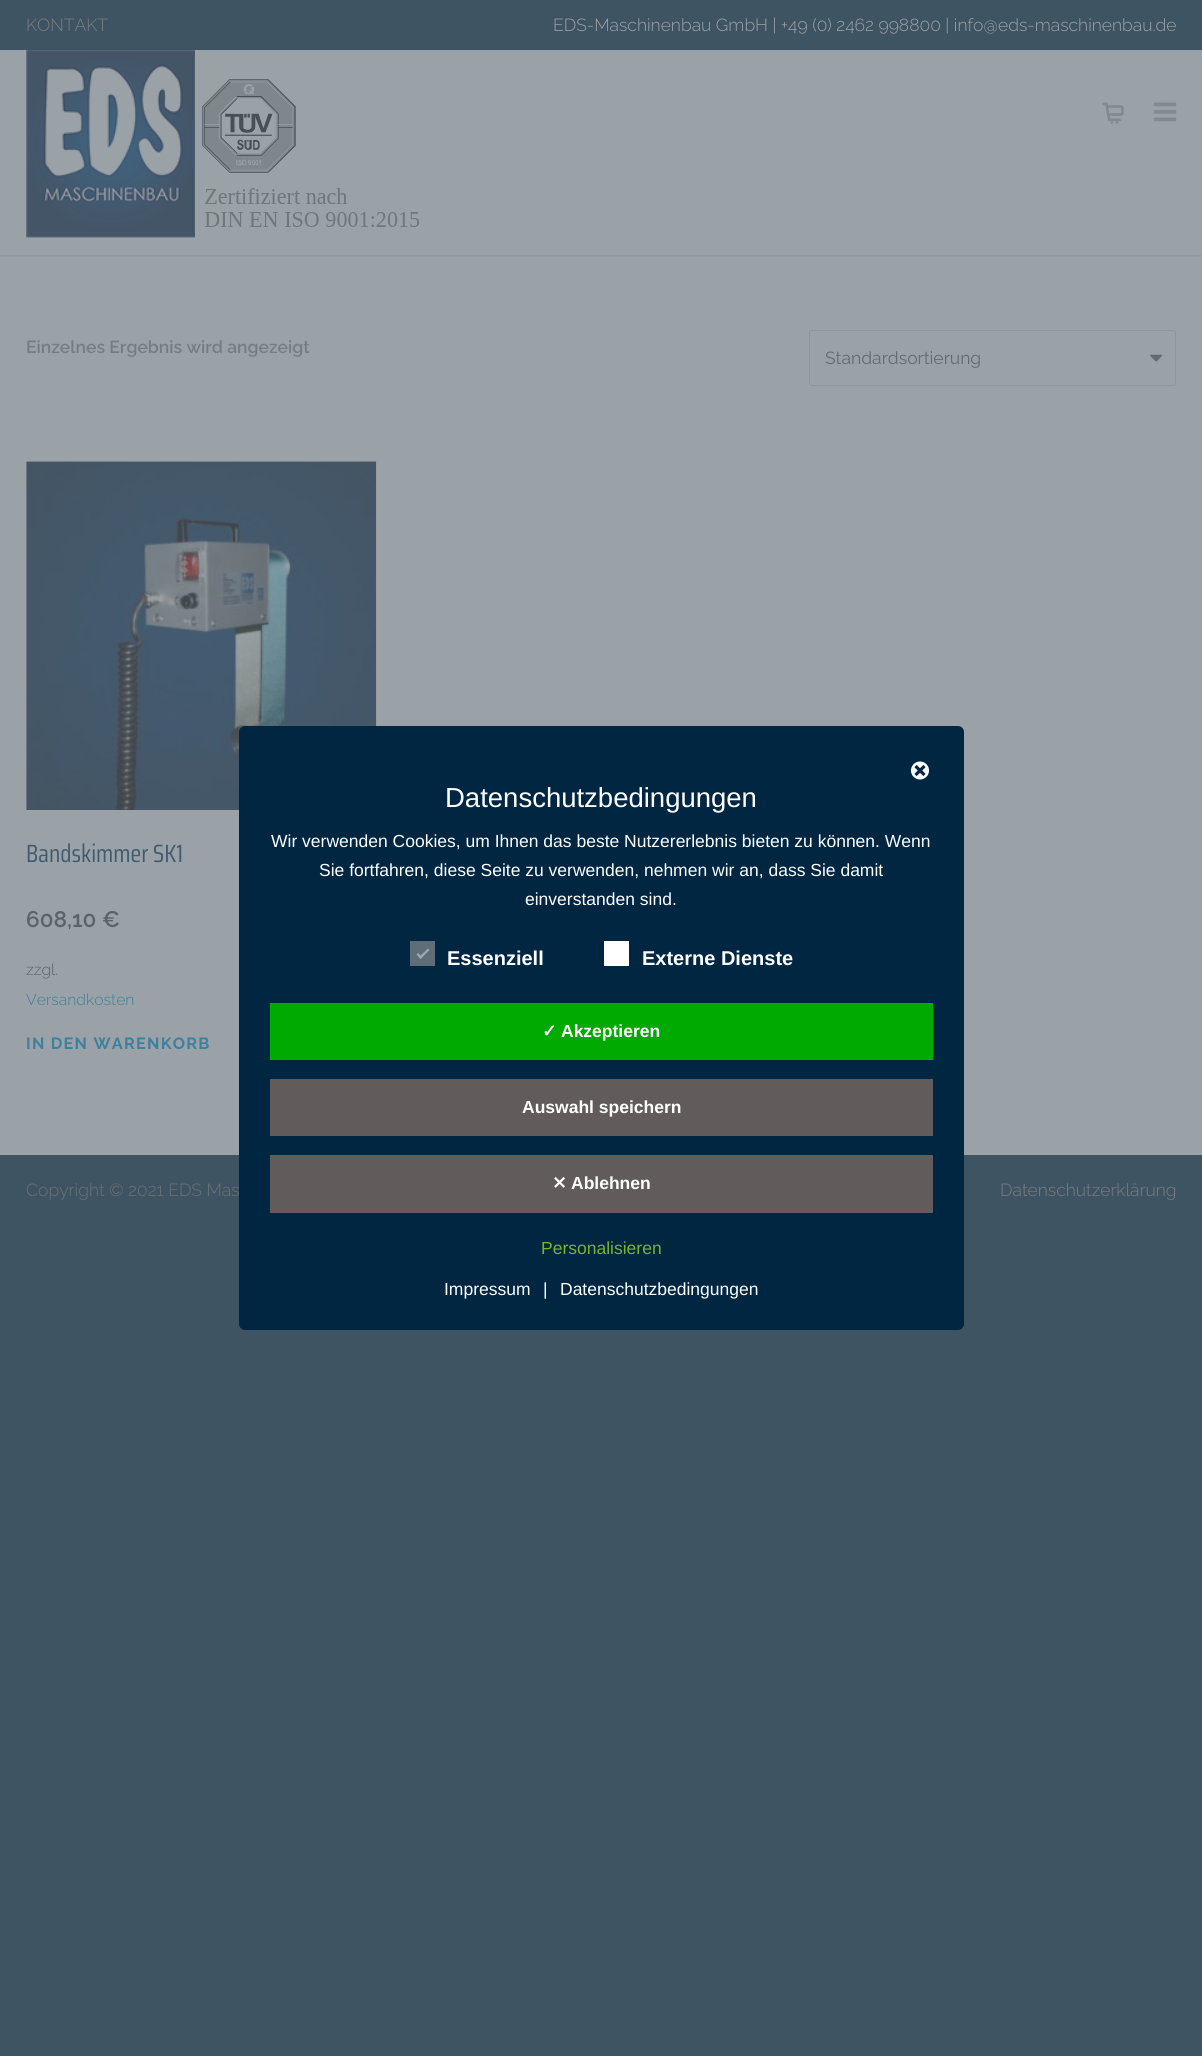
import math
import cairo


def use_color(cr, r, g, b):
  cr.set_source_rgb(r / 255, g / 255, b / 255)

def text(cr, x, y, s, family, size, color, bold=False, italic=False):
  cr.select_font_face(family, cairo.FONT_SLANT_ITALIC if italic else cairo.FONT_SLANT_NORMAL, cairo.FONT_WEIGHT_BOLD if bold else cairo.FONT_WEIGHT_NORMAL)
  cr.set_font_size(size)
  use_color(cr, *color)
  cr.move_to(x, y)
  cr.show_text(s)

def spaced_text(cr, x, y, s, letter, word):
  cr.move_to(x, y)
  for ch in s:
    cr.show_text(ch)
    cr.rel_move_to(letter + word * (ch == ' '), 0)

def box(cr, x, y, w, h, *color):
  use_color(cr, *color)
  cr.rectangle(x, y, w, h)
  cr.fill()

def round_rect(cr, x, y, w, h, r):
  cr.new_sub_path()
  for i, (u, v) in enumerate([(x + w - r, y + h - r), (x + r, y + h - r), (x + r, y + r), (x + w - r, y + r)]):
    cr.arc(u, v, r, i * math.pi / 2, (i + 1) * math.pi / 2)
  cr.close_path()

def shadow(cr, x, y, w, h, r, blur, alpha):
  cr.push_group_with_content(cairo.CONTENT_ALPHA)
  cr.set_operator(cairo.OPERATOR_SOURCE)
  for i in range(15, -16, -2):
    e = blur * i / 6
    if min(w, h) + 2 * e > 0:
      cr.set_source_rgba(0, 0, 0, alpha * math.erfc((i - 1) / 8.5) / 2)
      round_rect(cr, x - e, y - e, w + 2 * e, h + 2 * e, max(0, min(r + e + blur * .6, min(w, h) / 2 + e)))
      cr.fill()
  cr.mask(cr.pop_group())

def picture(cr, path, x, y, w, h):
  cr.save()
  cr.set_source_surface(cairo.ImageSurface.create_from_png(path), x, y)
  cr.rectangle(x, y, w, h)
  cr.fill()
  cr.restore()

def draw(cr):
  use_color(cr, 63, 84, 99)
  cr.paint()
  box(cr, 0, 50, 1202, 1105, 155, 162, 167)
  cr.save()
  cr.rectangle(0, 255, 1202, 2)
  cr.clip()
  use_color(cr, 63, 70, 75)
  shadow(cr, -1, 49, 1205, 207, 0, 1, 0.16)
  cr.restore()
  box(cr, 1, 49, 1201, 1, 63, 84, 99)
  picture(cr, "img_01.png", 26, 50, 169, 188)
  picture(cr, "img_02.png", 1102, 102, 22, 22)
  picture(cr, "img_03.png", 1153, 102, 24, 20)
  picture(cr, "img_04.png", 202, 79, 218, 148)
  picture(cr, "img_05.png", 1150, 354, 13, 8)
  round_rect(cr, 809.5, 330.5, 366, 55, 2)
  use_color(cr, 142, 150, 154)
  cr.set_line_width(1)
  cr.stroke()
  picture(cr, "img_06.png", 26, 461, 351, 349)
  text(cr, 26, 31, "KONTAKT", "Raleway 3 Thin", 17.5, (118, 125, 130))
  text(cr, 553, 31, "EDS-Maschinenbau GmbH | +49 (0) 2462 998800 | info@eds-maschinenbau.de", "Raleway 3 Thin", 17.5, (155, 162, 167))
  text(cr, 26, 353, "Einzelnes Ergebnis wird angezeigt", "Raleway Thin", 17.5, (118, 125, 130))
  text(cr, 825, 364, "Standardsortierung", "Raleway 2 Thin", 17.5, (99, 107, 112))
  text(cr, 26, 862, "Bandskimmer SK1", "Saira Condensed", 25, (63, 92, 112))
  text(cr, 26, 927, "608,10 €", "Raleway Thin", 22.5, (92, 99, 104))
  text(cr, 26, 975, "zzgl.", "Raleway 3 Thin", 15.75, (92, 99, 104))
  text(cr, 26, 1005, "Versandkosten", "Raleway 3 Thin", 15.75, (63, 127, 159))
  cr.select_font_face("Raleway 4 Thin")
  cr.set_font_size(16.25)
  spaced_text(cr, 26, 1049, "IN DEN WARENKORB", 1.25, 0)
  text(cr, 26, 1196, "Copyright © 2021 EDS Mas", "Raleway 3 Thin", 17.5, (106, 113, 118))
  text(cr, 1000, 1196, "Datenschutzerklärung", "Raleway 3 Thin", 17.5, (118, 125, 130))
  use_color(cr, 0, 38, 66)
  round_rect(cr, 239, 726, 725, 604, 6)
  cr.fill()
  picture(cr, "img_07.png", 911, 761, 18, 19)
  text(cr, 445, 807, "Datenschutzbedingungen", "Liberation Sans", 27.5, (255, 255, 255))
  text(cr, 271, 847, "Wir verwenden Cookies, um Ihnen das beste Nutzererlebnis bieten zu können. Wenn", "Liberation Sans", 17.5, (255, 255, 255))
  text(cr, 319, 876, "Sie fortfahren, diese Seite zu verwenden, nehmen wir an, dass Sie damit", "Liberation Sans", 17.5, (255, 255, 255))
  text(cr, 525, 905, "einverstanden sind.", "Liberation Sans", 17.5, (255, 255, 255))
  box(cr, 410, 941, 25, 25, 94, 109, 120)
  use_color(cr, 153, 168, 179)
  cr.new_path()
  cr.move_to(428, 948.5)
  cr.line_to(429.5, 950)
  cr.line_to(420.5, 959)
  cr.line_to(419, 957)
  cr.close_path()
  cr.fill()
  cr.new_path()
  cr.move_to(418, 953)
  cr.line_to(422.5, 957)
  cr.line_to(420.5, 959)
  cr.line_to(416.5, 954.5)
  cr.close_path()
  cr.fill()
  text(cr, 447, 965, "Essenziell", "Liberation Sans", 20, (255, 255, 255), bold=True)
  box(cr, 604, 941, 25, 25, 255, 255, 255)
  text(cr, 642, 965, "Externe Dienste", "Liberation Sans", 20, (255, 255, 255), bold=True)
  box(cr, 270, 1003, 663, 57, 0, 170, 0)
  text(cr, 542, 1037, "✓", "DejaVu Sans", 17.5, (255, 255, 255), bold=True)
  text(cr, 561, 1037, "Akzeptieren", "Liberation Sans", 17.5, (255, 255, 255), bold=True)
  box(cr, 270, 1079, 663, 57, 97, 91, 91)
  text(cr, 522, 1113, "Auswahl speichern", "Liberation Sans", 17.5, (255, 255, 255), bold=True)
  box(cr, 270, 1155, 663, 58, 97, 91, 91)
  text(cr, 552, 1189, "✕", "DejaVu Sans", 17.5, (255, 255, 255), bold=True)
  text(cr, 571, 1189, "Ablehnen", "Liberation Sans", 17.5, (255, 255, 255), bold=True)
  text(cr, 541, 1254, "Personalisieren", "Liberation Sans", 17.5, (121, 181, 31))
  text(cr, 444, 1295, "Impressum", "Liberation Sans", 17.5, (255, 255, 255))
  text(cr, 543, 1295, "|", "Liberation Sans", 17.5, (255, 255, 255))
  text(cr, 560, 1295, "Datenschutzbedingungen", "Liberation Sans", 17.5, (255, 255, 255))


surface = cairo.ImageSurface(cairo.FORMAT_RGB24, 1202, 2056)
cr = cairo.Context(surface)
options = cairo.FontOptions()
options.set_hint_metrics(cairo.HINT_METRICS_OFF)
options.set_hint_style(cairo.HINT_STYLE_NONE)
cr.set_font_options(options)
cr.set_miter_limit(4)
draw(cr)
surface.write_to_png("out.png")
